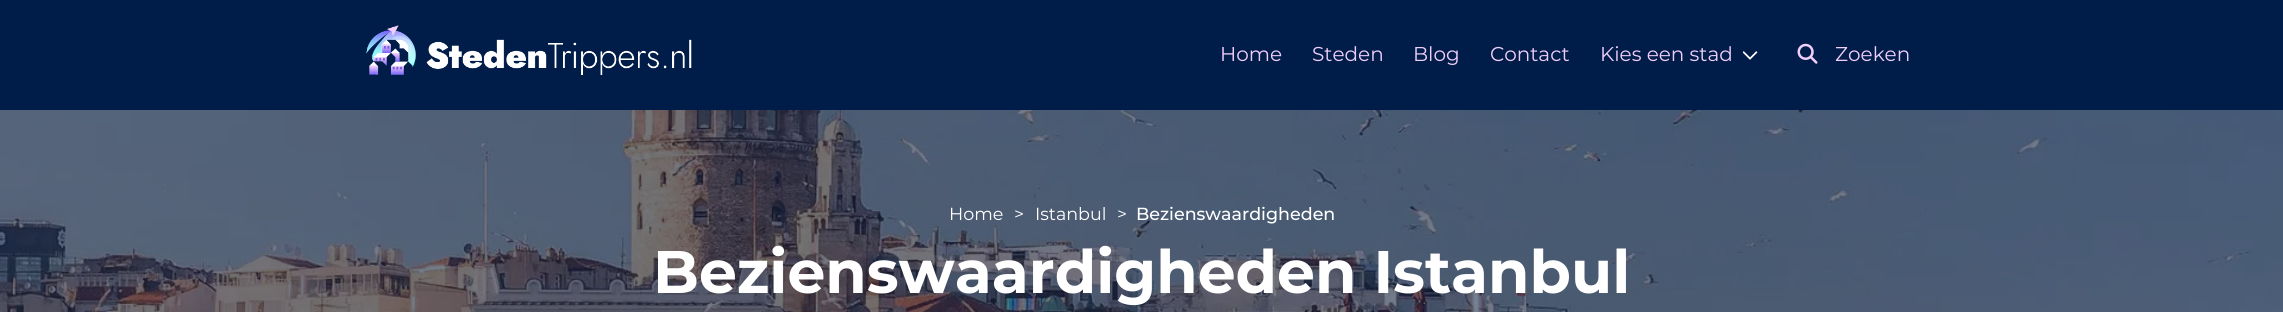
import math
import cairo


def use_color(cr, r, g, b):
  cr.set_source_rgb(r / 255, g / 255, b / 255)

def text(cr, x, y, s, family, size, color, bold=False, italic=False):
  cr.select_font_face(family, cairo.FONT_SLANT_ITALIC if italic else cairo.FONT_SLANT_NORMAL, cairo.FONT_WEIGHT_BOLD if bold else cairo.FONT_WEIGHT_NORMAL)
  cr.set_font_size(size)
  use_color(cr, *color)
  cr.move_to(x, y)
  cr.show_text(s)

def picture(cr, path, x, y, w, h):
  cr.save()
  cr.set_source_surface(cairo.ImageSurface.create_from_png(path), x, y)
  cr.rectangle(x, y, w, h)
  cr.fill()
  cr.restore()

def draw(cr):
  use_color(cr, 0, 28, 73)
  cr.paint()
  picture(cr, "img_01.png", 366, 25, 326, 50)
  picture(cr, "img_02.png", 1743, 51, 15, 9)
  picture(cr, "img_03.png", 1797, 43, 21, 21)
  picture(cr, "img_04.png", 0, 110, 2283, 202)
  text(cr, 1220, 61, "Home", "Montserrat", 20, (241, 207, 249))
  text(cr, 1312, 61, "Steden", "Montserrat", 20, (241, 207, 249))
  text(cr, 1413, 61, "Blog", "Montserrat", 20, (241, 207, 249))
  text(cr, 1490, 61, "Contact", "Montserrat", 20, (241, 207, 249))
  text(cr, 1600, 61, "Kies een stad", "Montserrat", 20, (241, 207, 249))
  text(cr, 1835, 61, "Zoeken", "Montserrat", 20, (241, 207, 249))
  text(cr, 949, 220, "Home", "Montserrat", 17.5, (255, 255, 255))
  text(cr, 1014, 220, ">", "Montserrat", 17.5, (255, 255, 255))
  text(cr, 1035, 220, "Istanbul", "Montserrat", 17.5, (255, 255, 255))
  text(cr, 1117, 220, ">", "Montserrat", 17.5, (255, 255, 255))
  text(cr, 1136, 220, "Bezienswaardigheden", "Montserrat Medium", 17.5, (255, 255, 255))
  text(cr, 653, 293, "Bezienswaardigheden Istanbul", "Montserrat", 60, (255, 255, 255), bold=True)


surface = cairo.ImageSurface(cairo.FORMAT_RGB24, 2283, 312)
cr = cairo.Context(surface)
options = cairo.FontOptions()
options.set_hint_metrics(cairo.HINT_METRICS_OFF)
options.set_hint_style(cairo.HINT_STYLE_NONE)
cr.set_font_options(options)
cr.set_miter_limit(4)
draw(cr)
surface.write_to_png("out.png")
